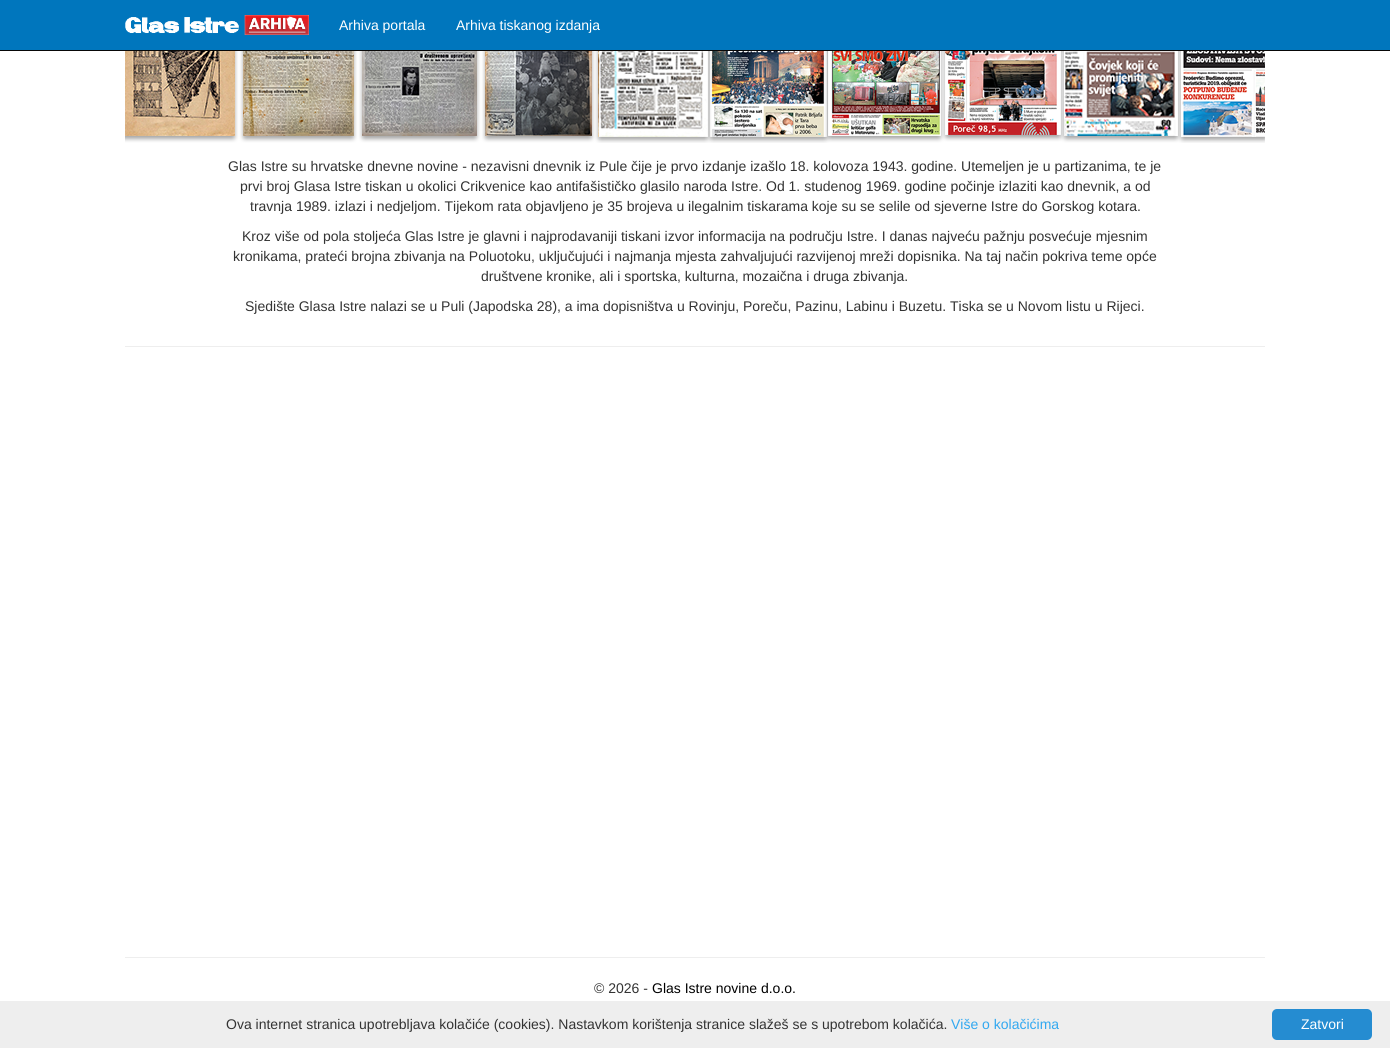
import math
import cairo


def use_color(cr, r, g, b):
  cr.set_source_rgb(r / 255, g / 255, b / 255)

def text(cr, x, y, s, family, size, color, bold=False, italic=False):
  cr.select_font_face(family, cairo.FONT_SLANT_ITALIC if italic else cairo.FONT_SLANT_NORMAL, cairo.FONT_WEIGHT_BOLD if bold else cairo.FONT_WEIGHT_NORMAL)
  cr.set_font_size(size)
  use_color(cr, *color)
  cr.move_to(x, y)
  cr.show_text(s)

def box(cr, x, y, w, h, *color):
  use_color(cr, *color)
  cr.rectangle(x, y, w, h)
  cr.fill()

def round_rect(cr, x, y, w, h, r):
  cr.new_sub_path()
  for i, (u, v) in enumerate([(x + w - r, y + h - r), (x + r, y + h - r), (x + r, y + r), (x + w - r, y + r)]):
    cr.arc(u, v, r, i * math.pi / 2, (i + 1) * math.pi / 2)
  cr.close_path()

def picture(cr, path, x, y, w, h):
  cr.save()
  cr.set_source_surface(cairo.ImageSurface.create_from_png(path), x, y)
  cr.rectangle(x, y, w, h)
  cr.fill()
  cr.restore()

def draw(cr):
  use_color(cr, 255, 255, 255)
  cr.paint()
  box(cr, 0, 0, 1390, 50, 0, 118, 189)
  box(cr, 0, 50, 1390, 1, 8, 8, 8)
  picture(cr, "img_01.png", 125, 15, 184, 20)
  picture(cr, "img_02.png", 125, 51, 1140, 92)
  box(cr, 125, 346, 1140, 1, 238, 238, 238)
  box(cr, 125, 957, 1140, 1, 238, 238, 238)
  box(cr, 0, 1001, 1390, 47, 238, 238, 238)
  use_color(cr, 37, 140, 209)
  round_rect(cr, 1272, 1009, 100, 31, 5)
  cr.fill()
  text(cr, 339, 30, "Arhiva portala", "Liberation Sans", 14, (255, 255, 255))
  text(cr, 456, 30, "Arhiva tiskanog izdanja", "Liberation Sans", 14, (255, 255, 255))
  text(cr, 228, 171, "Glas Istre su hrvatske dnevne novine - nezavisni dnevnik iz Pule čije je prvo izdanje izašlo 18. kolovoza 1943. godine. Utemeljen je u partizanima, te je", "Liberation Sans", 14, (51, 51, 51))
  text(cr, 240, 191, "prvi broj Glasa Istre tiskan u okolici Crikvenice kao antifašističko glasilo naroda Istre. Od 1. studenog 1969. godine počinje izlaziti kao dnevnik, a od", "Liberation Sans", 14, (51, 51, 51))
  text(cr, 250, 211, "travnja 1989. izlazi i nedjeljom. Tijekom rata objavljeno je 35 brojeva u ilegalnim tiskarama koje su se selile od sjeverne Istre do Gorskog kotara.", "Liberation Sans", 14, (51, 51, 51))
  text(cr, 242, 241, "Kroz više od pola stoljeća Glas Istre je glavni i najprodavaniji tiskani izvor informacija na području Istre. I danas najveću pažnju posvećuje mjesnim", "Liberation Sans", 14, (51, 51, 51))
  text(cr, 233, 261, "kronikama, prateći brojna zbivanja na Poluotoku, uključujući i najmanja mjesta zahvaljujući razvijenoj mreži dopisnika. Na taj način pokriva teme opće", "Liberation Sans", 14, (51, 51, 51))
  text(cr, 481, 281, "društvene kronike, ali i sportska, kulturna, mozaična i druga zbivanja.", "Liberation Sans", 14, (51, 51, 51))
  text(cr, 245, 311, "Sjedište Glasa Istre nalazi se u Puli (Japodska 28), a ima dopisništva u Rovinju, Poreču, Pazinu, Labinu i Buzetu. Tiska se u Novom listu u Rijeci.", "Liberation Sans", 14, (51, 51, 51))
  text(cr, 594, 993, "© 2026 -", "Liberation Sans", 14, (51, 51, 51))
  text(cr, 652, 993, "Glas Istre novine d.o.o.", "Liberation Sans", 14, (0, 0, 0))
  text(cr, 226, 1029, "Ova internet stranica upotrebljava kolačiće (cookies). Nastavkom korištenja stranice slažeš se s upotrebom kolačića.", "Liberation Sans", 14, (51, 51, 51))
  text(cr, 951, 1029, "Više o kolačićima", "Liberation Sans", 14, (49, 168, 240))
  text(cr, 1301, 1029, "Zatvori", "Liberation Sans", 14, (255, 255, 255))


surface = cairo.ImageSurface(cairo.FORMAT_RGB24, 1390, 1048)
cr = cairo.Context(surface)
options = cairo.FontOptions()
options.set_hint_metrics(cairo.HINT_METRICS_OFF)
options.set_hint_style(cairo.HINT_STYLE_NONE)
cr.set_font_options(options)
cr.set_miter_limit(4)
draw(cr)
surface.write_to_png("out.png")
